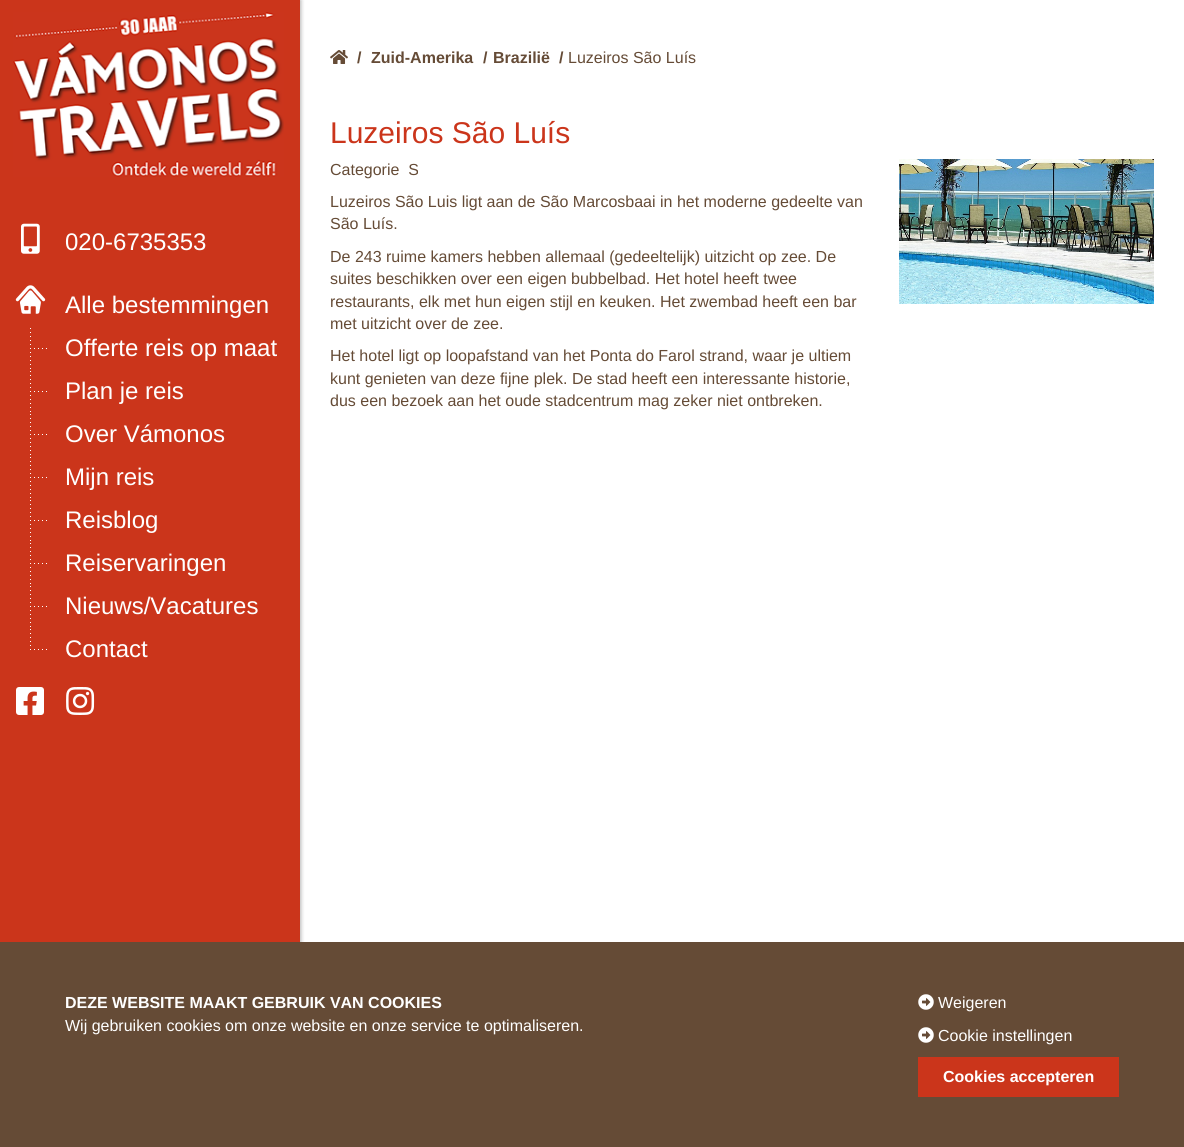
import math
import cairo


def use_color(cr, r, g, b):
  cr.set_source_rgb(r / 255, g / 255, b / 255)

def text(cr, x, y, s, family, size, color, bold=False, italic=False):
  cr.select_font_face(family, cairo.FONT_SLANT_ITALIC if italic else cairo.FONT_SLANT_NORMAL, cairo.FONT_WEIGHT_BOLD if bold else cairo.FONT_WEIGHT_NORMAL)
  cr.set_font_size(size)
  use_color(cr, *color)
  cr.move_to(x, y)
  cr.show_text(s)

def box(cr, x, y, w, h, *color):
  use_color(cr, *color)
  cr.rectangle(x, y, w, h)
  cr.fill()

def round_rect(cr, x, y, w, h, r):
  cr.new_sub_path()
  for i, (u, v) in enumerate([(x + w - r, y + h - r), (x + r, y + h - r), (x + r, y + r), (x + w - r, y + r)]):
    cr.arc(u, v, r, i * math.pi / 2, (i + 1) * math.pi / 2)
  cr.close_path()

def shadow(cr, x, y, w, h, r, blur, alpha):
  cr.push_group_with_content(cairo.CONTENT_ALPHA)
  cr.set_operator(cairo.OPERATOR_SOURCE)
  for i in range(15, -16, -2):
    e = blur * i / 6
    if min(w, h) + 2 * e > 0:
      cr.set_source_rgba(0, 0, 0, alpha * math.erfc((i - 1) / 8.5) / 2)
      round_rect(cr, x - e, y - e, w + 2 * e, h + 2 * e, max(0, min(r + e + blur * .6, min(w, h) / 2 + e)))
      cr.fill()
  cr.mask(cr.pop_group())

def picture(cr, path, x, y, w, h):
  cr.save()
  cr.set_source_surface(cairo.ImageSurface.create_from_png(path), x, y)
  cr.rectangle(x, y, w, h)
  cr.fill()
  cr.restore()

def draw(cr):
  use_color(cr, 255, 255, 255)
  cr.paint()
  use_color(cr, 0, 0, 0)
  shadow(cr, 1, 0, 300, 1147, 0, 2, 0.3)
  box(cr, 0, 0, 300, 942, 203, 53, 27)
  picture(cr, "img_01.png", 13, 12, 271, 165)
  picture(cr, "img_02.png", 21, 223, 19, 31)
  picture(cr, "img_03.png", 15, 285, 31, 29)
  picture(cr, "img_04.png", 34, 348, 13, 1)
  picture(cr, "img_05.png", 30, 328, 1, 41)
  picture(cr, "img_04.png", 34, 391, 13, 1)
  picture(cr, "img_05.png", 30, 371, 1, 41)
  picture(cr, "img_04.png", 34, 434, 13, 1)
  picture(cr, "img_05.png", 30, 414, 1, 41)
  picture(cr, "img_04.png", 34, 477, 13, 1)
  picture(cr, "img_05.png", 30, 457, 1, 41)
  picture(cr, "img_04.png", 34, 520, 13, 1)
  picture(cr, "img_05.png", 30, 500, 1, 41)
  picture(cr, "img_04.png", 34, 563, 13, 1)
  picture(cr, "img_05.png", 30, 543, 1, 41)
  picture(cr, "img_04.png", 34, 606, 13, 1)
  picture(cr, "img_05.png", 30, 586, 1, 41)
  picture(cr, "img_06.png", 30, 649, 17, 1)
  picture(cr, "img_07.png", 30, 629, 1, 17)
  picture(cr, "img_08.png", 16, 687, 28, 28)
  picture(cr, "img_09.png", 66, 687, 29, 28)
  picture(cr, "img_10.png", 330, 50, 18, 14)
  picture(cr, "img_11.png", 899, 159, 255, 145)
  box(cr, 0, 942, 1184, 205, 101, 75, 54)
  picture(cr, "img_12.png", 918, 994, 16, 16)
  picture(cr, "img_12.png", 918, 1027, 16, 16)
  box(cr, 918, 1057, 201, 40, 203, 53, 27)
  text(cr, 65, 250, "020-6735353", "Liberation Sans", 24, (255, 255, 255))
  text(cr, 65, 313, "Alle bestemmingen", "Liberation Sans", 24, (255, 255, 255))
  text(cr, 65, 356, "Offerte reis op maat", "Liberation Sans", 24, (255, 255, 255))
  text(cr, 65, 399, "Plan je reis", "Liberation Sans", 24, (255, 255, 255))
  text(cr, 65, 442, "Over Vámonos", "Liberation Sans", 24, (255, 255, 255))
  text(cr, 65, 485, "Mijn reis", "Liberation Sans", 24, (255, 255, 255))
  text(cr, 65, 528, "Reisblog", "Liberation Sans", 24, (255, 255, 255))
  text(cr, 65, 571, "Reiservaringen", "Liberation Sans", 24, (255, 255, 255))
  text(cr, 65, 614, "Nieuws/Vacatures", "Liberation Sans", 24, (255, 255, 255))
  text(cr, 65, 657, "Contact", "Liberation Sans", 24, (255, 255, 255))
  text(cr, 357, 63, "/", "Liberation Sans", 16, (101, 75, 54), bold=True)
  text(cr, 371, 63, "Zuid-Amerika", "Liberation Sans", 16, (101, 75, 54), bold=True)
  text(cr, 483, 63, "/", "Liberation Sans", 16, (101, 75, 54), bold=True)
  text(cr, 493, 63, "Brazilië", "Liberation Sans", 16, (101, 75, 54), bold=True)
  text(cr, 559, 63, "/", "Liberation Sans", 16, (101, 75, 54), bold=True)
  text(cr, 568, 63, "Luzeiros São Luís", "Liberation Sans", 16, (101, 75, 54))
  text(cr, 330, 143, "Luzeiros São Luís", "Liberation Sans", 30, (203, 53, 27))
  text(cr, 330, 175, "Categorie  S", "Liberation Sans", 16, (101, 75, 54))
  text(cr, 330, 207, "Luzeiros São Luis ligt aan de São Marcosbaai in het moderne gedeelte van", "Liberation Sans", 16, (101, 75, 54))
  text(cr, 330, 229, "São Luís.", "Liberation Sans", 16, (101, 75, 54))
  text(cr, 330, 262, "De 243 ruime kamers hebben allemaal (gedeeltelijk) uitzicht op zee. De", "Liberation Sans", 16, (101, 75, 54))
  text(cr, 330, 284, "suites beschikken over een eigen bubbelbad. Het hotel heeft twee", "Liberation Sans", 16, (101, 75, 54))
  text(cr, 330, 307, "restaurants, elk met hun eigen stijl en keuken. Het zwembad heeft een bar", "Liberation Sans", 16, (101, 75, 54))
  text(cr, 330, 329, "met uitzicht over de zee.", "Liberation Sans", 16, (101, 75, 54))
  text(cr, 330, 361, "Het hotel ligt op loopafstand van het Ponta do Farol strand, waar je ultiem", "Liberation Sans", 16, (101, 75, 54))
  text(cr, 330, 384, "kunt genieten van deze fijne plek. De stad heeft een interessante historie,", "Liberation Sans", 16, (101, 75, 54))
  text(cr, 330, 406, "dus een bezoek aan het oude stadcentrum mag zeker niet ontbreken.", "Liberation Sans", 16, (101, 75, 54))
  text(cr, 65, 1008, "DEZE WEBSITE MAAKT GEBRUIK VAN COOKIES", "Liberation Sans", 16, (255, 255, 255), bold=True)
  text(cr, 65, 1031, "Wij gebruiken cookies om onze website en onze service te optimaliseren.", "Liberation Sans", 16, (255, 255, 255))
  text(cr, 938, 1008, "Weigeren", "Liberation Sans", 16, (255, 255, 255))
  text(cr, 938, 1041, "Cookie instellingen", "Liberation Sans", 16, (255, 255, 255))
  text(cr, 943, 1082, "Cookies accepteren", "Liberation Sans", 16, (255, 255, 255), bold=True)


surface = cairo.ImageSurface(cairo.FORMAT_RGB24, 1184, 1147)
cr = cairo.Context(surface)
options = cairo.FontOptions()
options.set_hint_metrics(cairo.HINT_METRICS_OFF)
options.set_hint_style(cairo.HINT_STYLE_NONE)
cr.set_font_options(options)
cr.set_miter_limit(4)
draw(cr)
surface.write_to_png("out.png")
